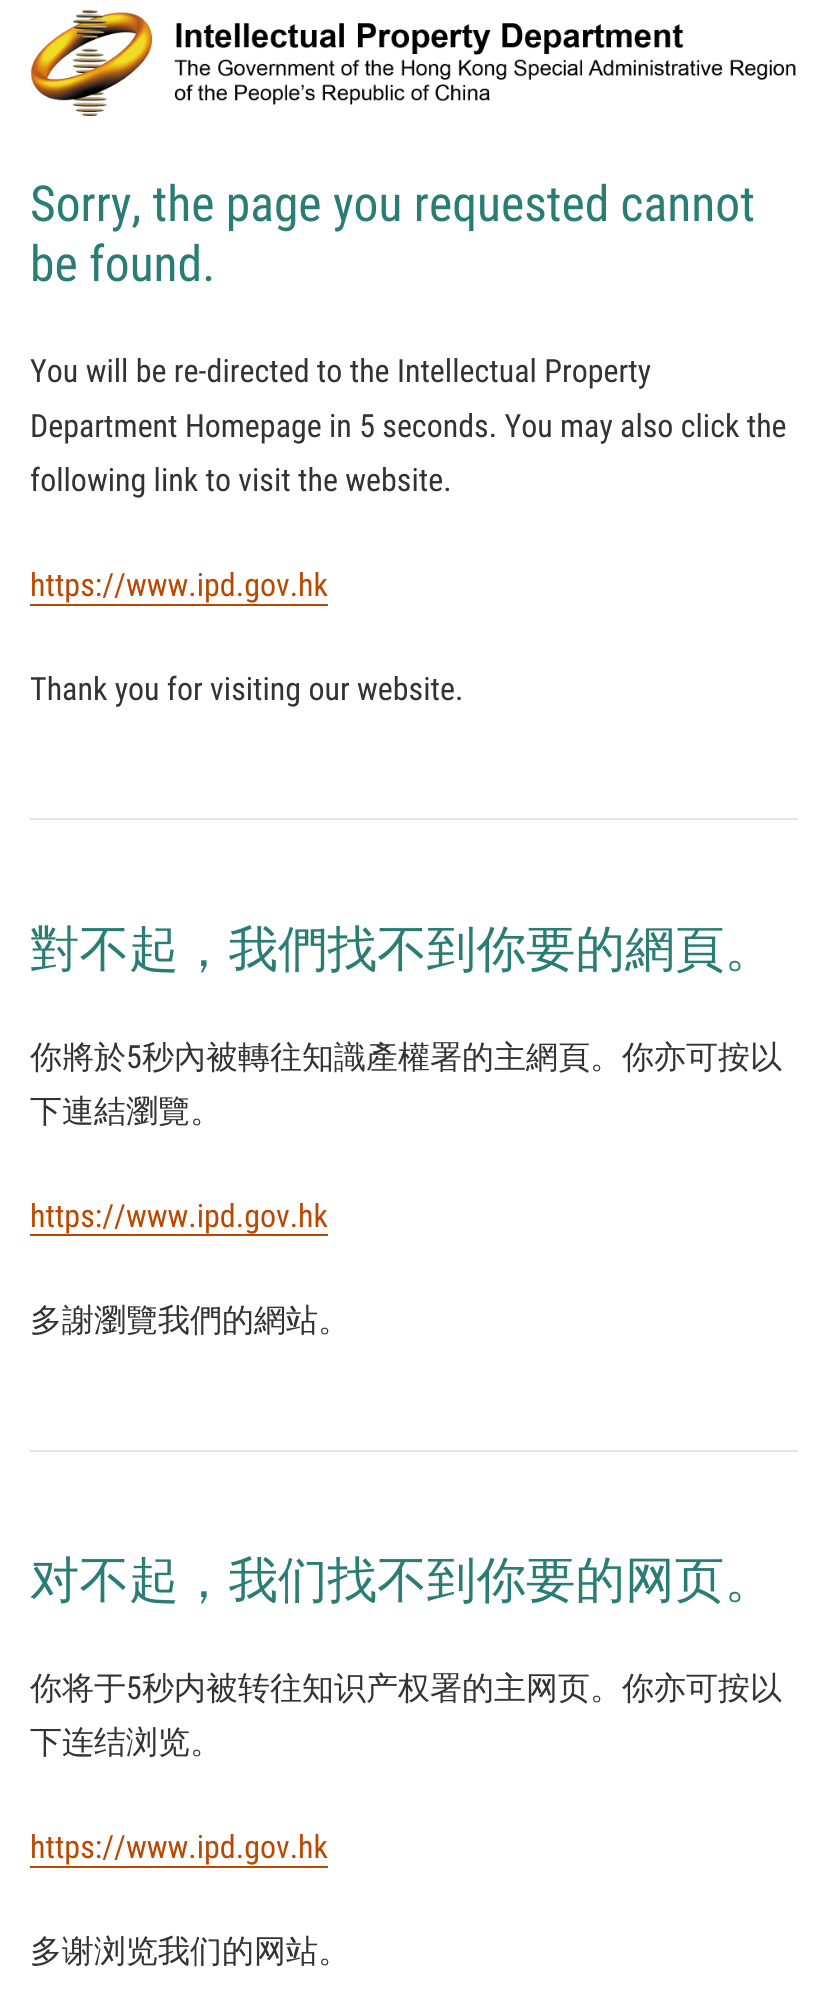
import math
import cairo


def use_color(cr, r, g, b):
  cr.set_source_rgb(r / 255, g / 255, b / 255)

def text(cr, x, y, s, family, size, color, bold=False, italic=False):
  cr.select_font_face(family, cairo.FONT_SLANT_ITALIC if italic else cairo.FONT_SLANT_NORMAL, cairo.FONT_WEIGHT_BOLD if bold else cairo.FONT_WEIGHT_NORMAL)
  cr.set_font_size(size)
  use_color(cr, *color)
  cr.move_to(x, y)
  cr.show_text(s)

def box(cr, x, y, w, h, *color):
  use_color(cr, *color)
  cr.rectangle(x, y, w, h)
  cr.fill()

def picture(cr, path, x, y, w, h):
  cr.save()
  cr.set_source_surface(cairo.ImageSurface.create_from_png(path), x, y)
  cr.rectangle(x, y, w, h)
  cr.fill()
  cr.restore()

def draw(cr):
  use_color(cr, 255, 255, 255)
  cr.paint()
  picture(cr, "img_01.png", 30, 10, 766, 106)
  box(cr, 30, 604, 298, 2, 187, 72, 0)
  box(cr, 30, 818, 768, 2, 229, 229, 229)
  box(cr, 30, 1234, 298, 2, 187, 72, 0)
  box(cr, 30, 1450, 768, 2, 229, 229, 229)
  box(cr, 30, 1866, 298, 2, 187, 72, 0)
  text(cr, 30, 221, "Sorry, the page you requested cannot", "Roboto Condensed", 49.6, (41, 125, 116))
  text(cr, 30, 281, "be found.", "Roboto Condensed", 49.6, (41, 125, 116))
  text(cr, 30, 382, "You will be re-directed to the Intellectual Property", "Roboto Condensed", 32, (51, 51, 51))
  text(cr, 30, 437, "Department Homepage in 5 seconds. You may also click the", "Roboto Condensed", 32, (51, 51, 51))
  text(cr, 30, 491, "following link to visit the website.", "Roboto Condensed", 32, (51, 51, 51))
  text(cr, 30, 596, "https://www.ipd.gov.hk", "Roboto Condensed", 32, (187, 72, 0))
  text(cr, 30, 700, "Thank you for visiting our website.", "Roboto Condensed", 32, (51, 51, 51))
  text(cr, 30, 966, "對不起，我們找不到你要的網頁。", "WenQuanYi Zen Hei Medium", 49.6, (41, 125, 116))
  text(cr, 30, 1068, "你將於", "WenQuanYi Zen Hei Medium", 32, (51, 51, 51))
  text(cr, 126, 1068, "5", "Roboto Condensed", 32, (51, 51, 51))
  text(cr, 142, 1068, "秒內被轉往知識產權署的主網頁。你亦可按以", "WenQuanYi Zen Hei Medium", 32, (51, 51, 51))
  text(cr, 30, 1122, "下連結瀏覽。", "WenQuanYi Zen Hei Medium", 32, (51, 51, 51))
  text(cr, 30, 1227, "https://www.ipd.gov.hk", "Roboto Condensed", 32, (187, 72, 0))
  text(cr, 30, 1331, "多謝瀏覽我們的網站。", "WenQuanYi Zen Hei Medium", 32, (51, 51, 51))
  text(cr, 30, 1597, "对不起，我们找不到你要的网页。", "WenQuanYi Zen Hei Medium", 49.6, (41, 125, 116))
  text(cr, 30, 1699, "你将于", "WenQuanYi Zen Hei Medium", 32, (51, 51, 51))
  text(cr, 126, 1699, "5", "Roboto Condensed", 32, (51, 51, 51))
  text(cr, 142, 1699, "秒内被转往知识产权署的主网页。你亦可按以", "WenQuanYi Zen Hei Medium", 32, (51, 51, 51))
  text(cr, 30, 1753, "下连结浏览。", "WenQuanYi Zen Hei Medium", 32, (51, 51, 51))
  text(cr, 30, 1858, "https://www.ipd.gov.hk", "Roboto Condensed", 32, (187, 72, 0))
  text(cr, 30, 1962, "多谢浏览我们的网站。", "WenQuanYi Zen Hei Medium", 32, (51, 51, 51))


surface = cairo.ImageSurface(cairo.FORMAT_RGB24, 827, 2008)
cr = cairo.Context(surface)
options = cairo.FontOptions()
options.set_hint_metrics(cairo.HINT_METRICS_OFF)
options.set_hint_style(cairo.HINT_STYLE_NONE)
cr.set_font_options(options)
cr.set_miter_limit(4)
draw(cr)
surface.write_to_png("out.png")
